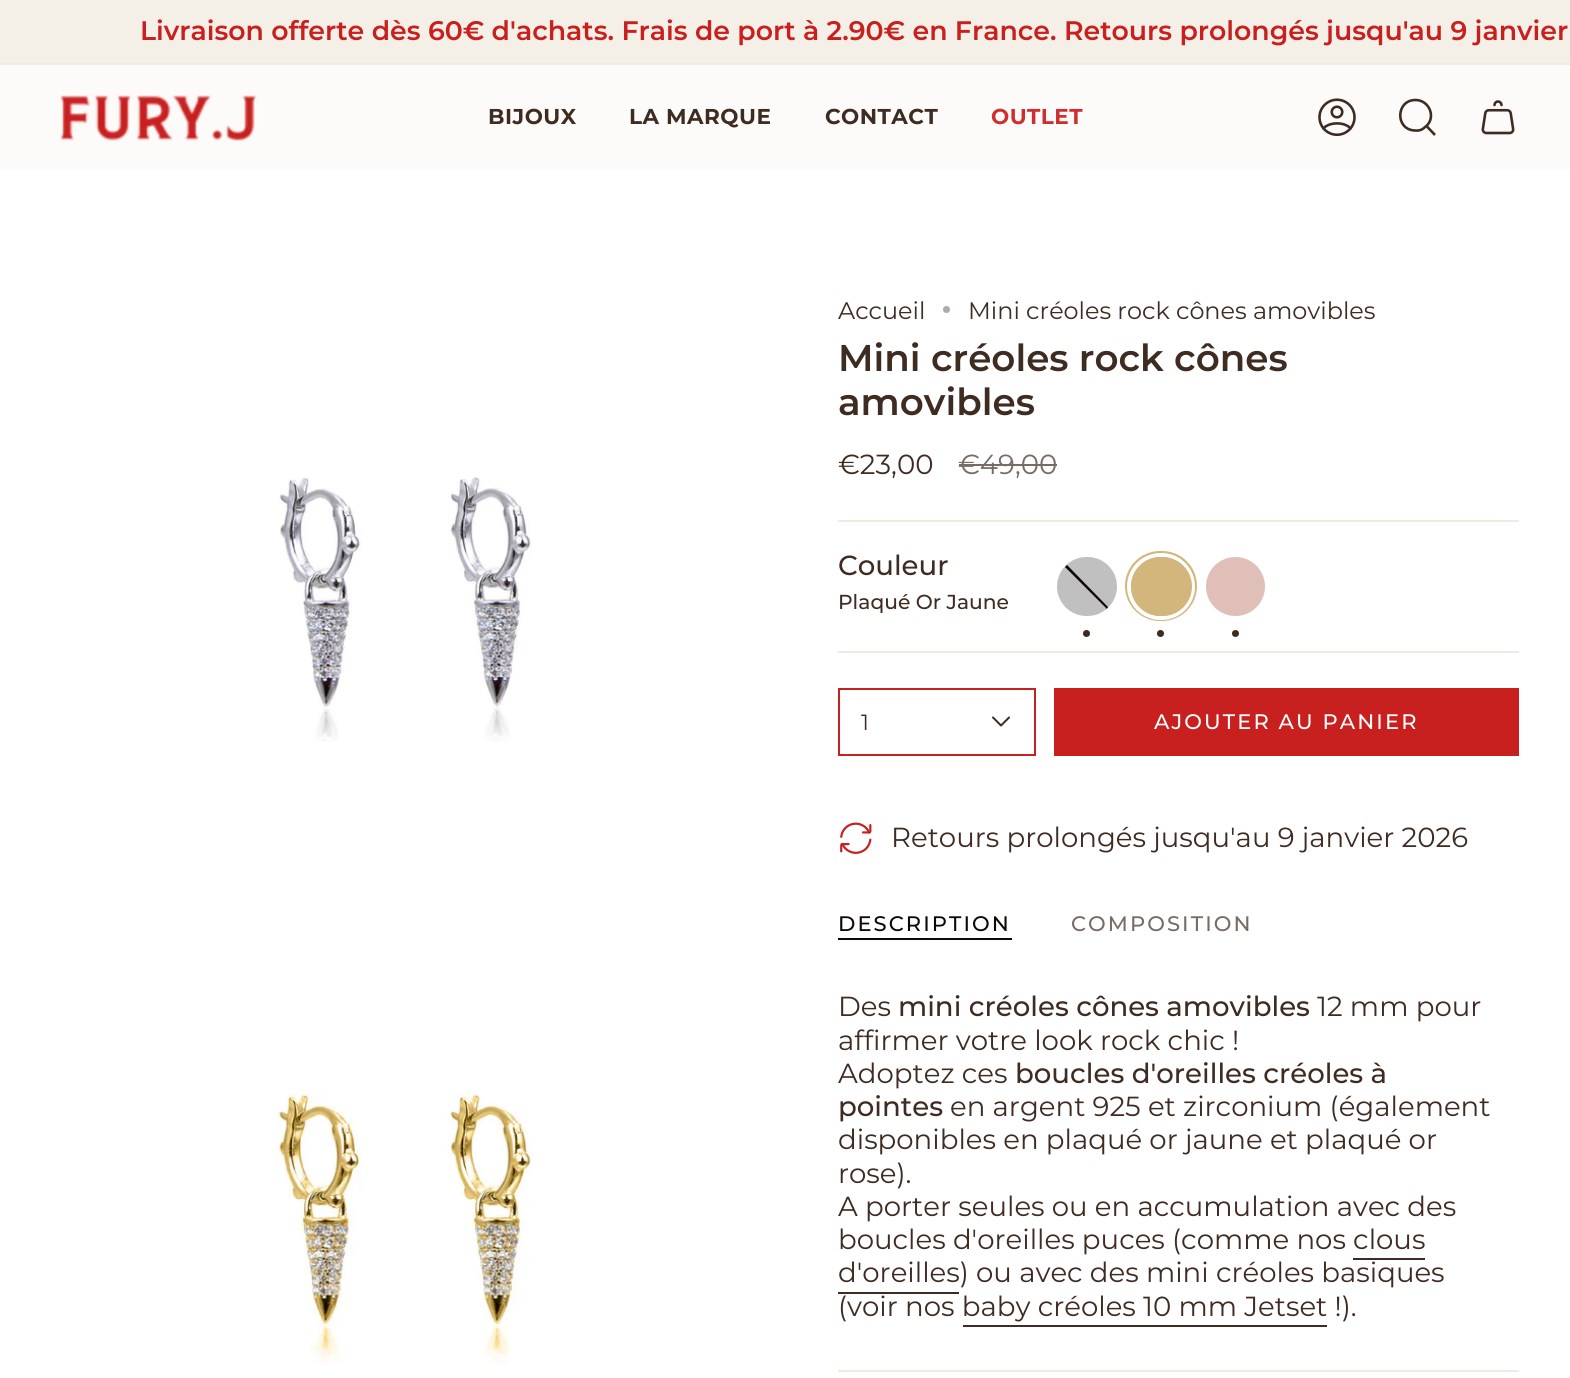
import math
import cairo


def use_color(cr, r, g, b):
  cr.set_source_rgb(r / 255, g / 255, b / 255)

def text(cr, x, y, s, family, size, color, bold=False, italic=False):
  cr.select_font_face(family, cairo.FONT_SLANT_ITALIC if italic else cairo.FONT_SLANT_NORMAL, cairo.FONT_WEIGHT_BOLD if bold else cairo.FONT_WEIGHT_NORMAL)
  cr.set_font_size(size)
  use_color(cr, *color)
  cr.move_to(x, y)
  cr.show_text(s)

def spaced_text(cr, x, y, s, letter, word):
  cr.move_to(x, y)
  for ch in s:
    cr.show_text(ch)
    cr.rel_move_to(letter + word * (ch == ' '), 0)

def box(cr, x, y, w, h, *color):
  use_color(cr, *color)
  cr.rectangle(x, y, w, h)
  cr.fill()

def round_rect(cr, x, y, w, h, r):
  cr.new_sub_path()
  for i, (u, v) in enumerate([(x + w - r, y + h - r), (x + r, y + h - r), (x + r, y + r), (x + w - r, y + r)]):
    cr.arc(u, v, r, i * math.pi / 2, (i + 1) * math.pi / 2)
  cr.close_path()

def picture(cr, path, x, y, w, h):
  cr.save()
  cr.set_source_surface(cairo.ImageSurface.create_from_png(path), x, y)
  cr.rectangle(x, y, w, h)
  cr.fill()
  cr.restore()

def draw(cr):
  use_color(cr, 255, 255, 255)
  cr.paint()
  box(cr, 0, 0, 1570, 63, 245, 240, 231)
  box(cr, 0, 63, 1570, 2, 239, 235, 224)
  box(cr, 0, 65, 1570, 105, 252, 251, 249)
  picture(cr, "img_01.png", 60, 95, 197, 46)
  picture(cr, "img_02.png", 1318, 98, 38, 39)
  cr.new_path()
  cr.move_to(1415.5, 100)
  cr.curve_to(1430, 100, 1437, 119, 1424.5, 127.5)
  cr.curve_to(1422, 130, 1418.5, 131, 1415, 130.5)
  cr.curve_to(1395, 130, 1395.5, 100, 1415.5, 100)
  cr.close_path()
  cr.move_to(1426.5, 126)
  cr.line_to(1435, 135)
  use_color(cr, 62, 43, 33)
  cr.set_line_width(2.6)
  cr.stroke()
  picture(cr, "img_03.png", 1481, 100, 34, 35)
  picture(cr, "img_04.png", 279, 477, 253, 265)
  picture(cr, "img_05.png", 275, 1093, 258, 271)
  use_color(cr, 178, 170, 166)
  cr.arc(946.5, 309.5, 3.5, 0, 2 * math.pi)
  cr.fill()
  box(cr, 959, 464, 98, 2, 120, 107, 100)
  box(cr, 838, 520, 681, 2, 239, 235, 224)
  box(cr, 838, 651, 681, 2, 239, 235, 224)
  use_color(cr, 192, 192, 192)
  round_rect(cr, 1057, 557, 60, 59, 29.5)
  cr.fill()
  use_color(cr, 13, 8, 5)
  cr.new_path()
  cr.move_to(1065, 567)
  cr.line_to(1067, 565)
  cr.line_to(1108, 607)
  cr.line_to(1107, 609)
  cr.close_path()
  cr.fill()
  use_color(cr, 62, 43, 33)
  cr.arc(1086.5, 633.5, 3.5, 0, 2 * math.pi)
  cr.fill()
  use_color(cr, 211, 182, 124)
  round_rect(cr, 1125, 551, 72, 70, 35)
  cr.fill()
  round_rect(cr, 1129, 555, 64, 63, 31.5)
  use_color(cr, 255, 255, 255)
  cr.set_line_width(4)
  cr.stroke()
  use_color(cr, 211, 182, 124)
  round_rect(cr, 1131, 557, 61, 59, 29.5)
  cr.fill()
  use_color(cr, 62, 43, 33)
  cr.arc(1160.5, 633.5, 3.5, 0, 2 * math.pi)
  cr.fill()
  use_color(cr, 224, 191, 184)
  cr.arc(1235.5, 586.5, 29.5, 0, 2 * math.pi)
  cr.fill()
  use_color(cr, 62, 43, 33)
  cr.arc(1235.5, 633.5, 3.5, 0, 2 * math.pi)
  cr.fill()
  cr.rectangle(839, 689, 196, 66)
  use_color(cr, 200, 31, 31)
  cr.set_line_width(2)
  cr.stroke()
  cr.new_path()
  cr.move_to(993, 717.5)
  cr.line_to(1001, 725.5)
  cr.line_to(1009, 717.5)
  use_color(cr, 62, 43, 33)
  cr.set_line_cap(cairo.LINE_CAP_ROUND)
  cr.set_line_join(cairo.LINE_JOIN_ROUND)
  cr.stroke()
  box(cr, 1054, 688, 465, 68, 200, 31, 31)
  picture(cr, "img_06.png", 840, 822, 32, 32)
  box(cr, 838, 938, 174, 2, 13, 8, 5)
  box(cr, 1353, 1258, 72, 2, 62, 43, 33)
  box(cr, 838, 1292, 121, 2, 62, 43, 33)
  box(cr, 963, 1325, 364, 2, 62, 43, 33)
  box(cr, 838, 1370, 681, 2, 239, 235, 224)
  text(cr, 140, 40, "Livraison offerte dès 60€ d'achats. Frais de port à 2.90€ en France. Retours prolongés jusqu'au 9 janvier", "Montserrat SemiBold", 26.78, (200, 31, 31))
  cr.select_font_face("Montserrat", cairo.FONT_SLANT_NORMAL, cairo.FONT_WEIGHT_BOLD)
  cr.set_font_size(21.5)
  use_color(cr, 62, 43, 33)
  spaced_text(cr, 488, 124, "BIJOUX", 0.5, 0)
  spaced_text(cr, 629, 124, "LA MARQUE", 0.5, 0)
  spaced_text(cr, 825, 124, "CONTACT", 0.5, 0)
  use_color(cr, 208, 46, 46)
  spaced_text(cr, 991, 124, "OUTLET", 0.5, 0)
  text(cr, 838, 319, "Accueil", "Montserrat", 23.9, (62, 43, 33))
  text(cr, 968, 319, "Mini créoles rock cônes amovibles", "Montserrat", 23.9, (62, 43, 33))
  text(cr, 838, 371, "Mini créoles rock cônes", "Montserrat SemiBold", 37.25, (62, 43, 33))
  text(cr, 838, 415, "amovibles", "Montserrat SemiBold", 37.25, (62, 43, 33))
  text(cr, 838, 474, "€23,00", "Montserrat", 27.6, (62, 43, 33))
  text(cr, 958, 474, "€49,00", "Montserrat", 27.6, (120, 107, 100))
  text(cr, 838, 575, "Couleur", "Montserrat Medium", 27.6, (62, 43, 33))
  text(cr, 838, 609, "Plaqué Or Jaune", "Montserrat Medium", 20.25, (62, 43, 33))
  text(cr, 861, 730, "1", "Montserrat", 22, (62, 43, 33))
  cr.select_font_face("Montserrat Medium")
  cr.set_font_size(21)
  use_color(cr, 255, 255, 255)
  spaced_text(cr, 1154, 729, "AJOUTER AU PANIER", 2.1, 0)
  text(cr, 891, 847, "Retours prolongés jusqu'au 9 janvier 2026", "Montserrat", 27.6, (62, 43, 33))
  cr.select_font_face("Montserrat Medium")
  cr.set_font_size(21)
  use_color(cr, 13, 8, 5)
  spaced_text(cr, 838, 931, "DESCRIPTION", 2.1, 0)
  use_color(cr, 120, 107, 100)
  spaced_text(cr, 1071, 931, "COMPOSITION", 2.1, 0)
  text(cr, 838, 1016, "Des", "Montserrat", 27.6, (62, 43, 33))
  text(cr, 898, 1016, "mini créoles cônes amovibles", "Montserrat Medium", 27.6, (62, 43, 33))
  text(cr, 1317, 1016, "12 mm pour", "Montserrat", 27.6, (62, 43, 33))
  text(cr, 838, 1050, "affirmer votre look rock chic !", "Montserrat", 27.6, (62, 43, 33))
  text(cr, 838, 1083, "Adoptez ces", "Montserrat", 27.6, (62, 43, 33))
  text(cr, 1015, 1083, "boucles d'oreilles créoles à", "Montserrat Medium", 27.6, (62, 43, 33))
  text(cr, 838, 1116, "pointes", "Montserrat Medium", 27.6, (62, 43, 33))
  text(cr, 950, 1116, "en argent 925 et zirconium (également", "Montserrat", 27.6, (62, 43, 33))
  text(cr, 838, 1149, "disponibles en plaqué or jaune et plaqué or", "Montserrat", 27.6, (62, 43, 33))
  text(cr, 838, 1183, "rose).", "Montserrat", 27.6, (62, 43, 33))
  text(cr, 838, 1216, "A porter seules ou en accumulation avec des", "Montserrat", 27.6, (62, 43, 33))
  text(cr, 838, 1249, "boucles d'oreilles puces (comme nos clous", "Montserrat", 27.6, (62, 43, 33))
  text(cr, 838, 1282, "d'oreilles) ou avec des mini créoles basiques", "Montserrat", 27.6, (62, 43, 33))
  text(cr, 838, 1316, "(voir nos baby créoles 10 mm Jetset !).", "Montserrat", 27.6, (62, 43, 33))


surface = cairo.ImageSurface(cairo.FORMAT_RGB24, 1570, 1378)
cr = cairo.Context(surface)
options = cairo.FontOptions()
options.set_hint_metrics(cairo.HINT_METRICS_OFF)
options.set_hint_style(cairo.HINT_STYLE_NONE)
cr.set_font_options(options)
cr.set_miter_limit(4)
draw(cr)
surface.write_to_png("out.png")
